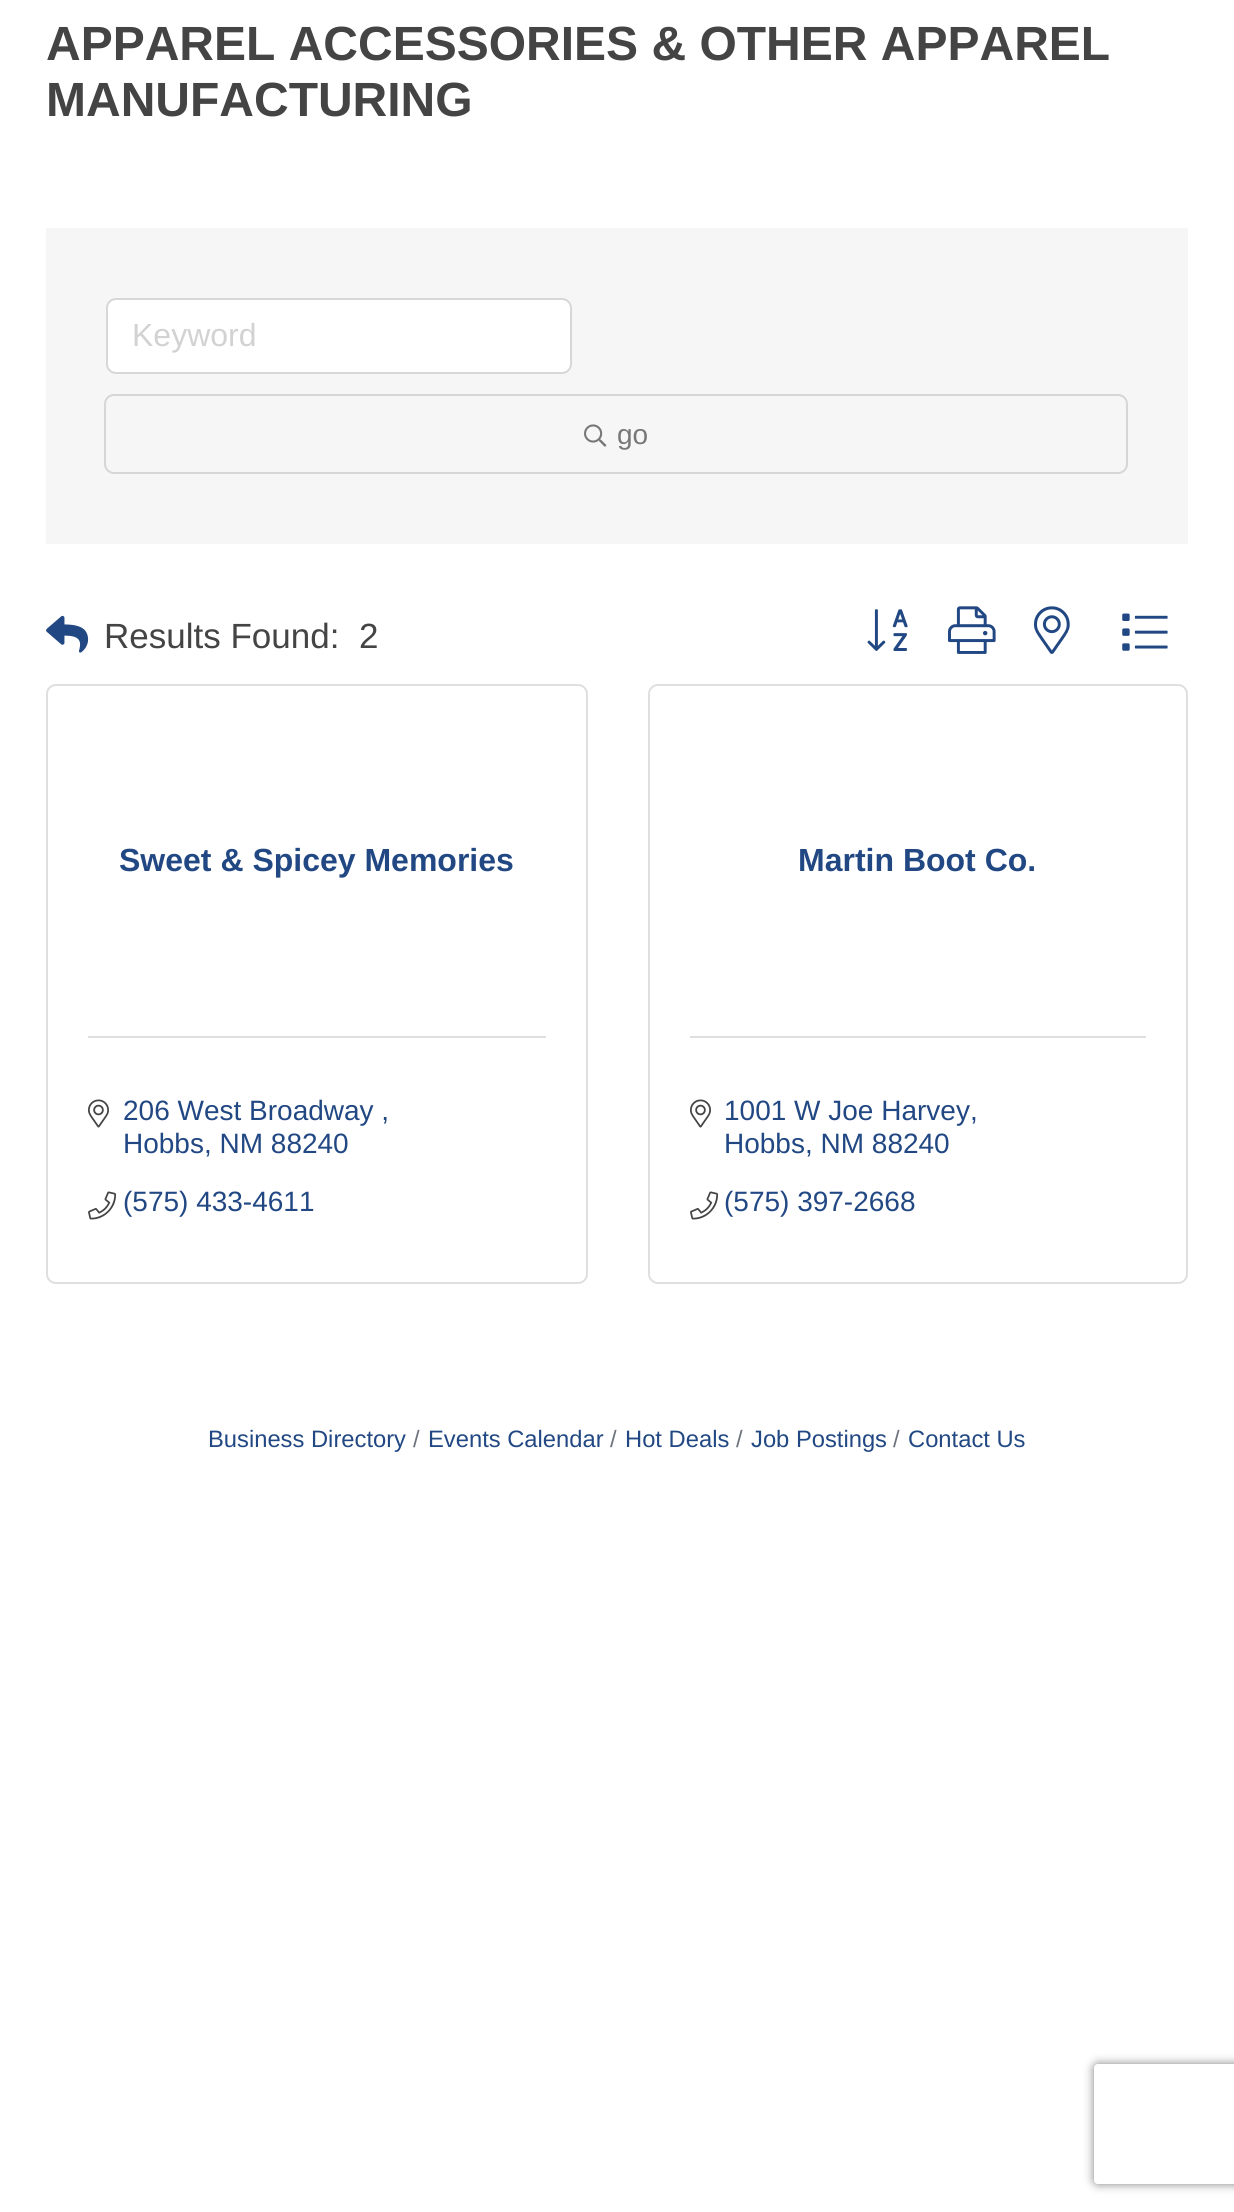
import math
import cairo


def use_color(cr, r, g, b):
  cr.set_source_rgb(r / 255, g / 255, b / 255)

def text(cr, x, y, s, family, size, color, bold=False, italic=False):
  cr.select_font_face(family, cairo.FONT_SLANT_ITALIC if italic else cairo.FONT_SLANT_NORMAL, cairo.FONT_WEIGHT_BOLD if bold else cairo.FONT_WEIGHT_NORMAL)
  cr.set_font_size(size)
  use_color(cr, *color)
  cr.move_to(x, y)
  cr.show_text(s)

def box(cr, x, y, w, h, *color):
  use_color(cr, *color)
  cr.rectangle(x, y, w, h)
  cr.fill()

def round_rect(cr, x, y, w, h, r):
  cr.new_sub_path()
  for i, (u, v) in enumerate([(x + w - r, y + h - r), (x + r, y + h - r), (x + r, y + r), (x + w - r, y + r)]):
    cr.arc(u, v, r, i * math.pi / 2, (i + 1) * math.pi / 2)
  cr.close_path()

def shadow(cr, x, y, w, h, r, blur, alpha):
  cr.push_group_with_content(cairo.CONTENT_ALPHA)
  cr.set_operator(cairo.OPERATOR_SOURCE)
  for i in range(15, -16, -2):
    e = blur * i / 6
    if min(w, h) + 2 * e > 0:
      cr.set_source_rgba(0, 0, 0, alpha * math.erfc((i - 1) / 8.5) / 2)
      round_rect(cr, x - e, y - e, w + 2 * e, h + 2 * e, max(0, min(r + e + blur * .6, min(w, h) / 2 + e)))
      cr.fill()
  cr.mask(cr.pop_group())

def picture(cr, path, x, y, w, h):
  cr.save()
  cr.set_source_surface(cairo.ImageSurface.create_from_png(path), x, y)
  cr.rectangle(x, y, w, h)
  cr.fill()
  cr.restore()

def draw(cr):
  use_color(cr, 255, 255, 255)
  cr.paint()
  box(cr, 46, 228, 1142, 316, 246, 246, 246)
  use_color(cr, 255, 255, 255)
  round_rect(cr, 107, 299, 464, 74, 9)
  cr.fill_preserve()
  use_color(cr, 215, 215, 215)
  cr.stroke()
  round_rect(cr, 105, 395, 1022, 78, 9)
  use_color(cr, 214, 214, 214)
  cr.stroke()
  picture(cr, "img_01.png", 584, 424, 23, 23)
  picture(cr, "img_02.png", 46, 615, 43, 38)
  picture(cr, "img_03.png", 867, 609, 41, 42)
  picture(cr, "img_04.png", 948, 606, 48, 48)
  picture(cr, "img_05.png", 1034, 606, 36, 48)
  picture(cr, "img_06.png", 1122, 613, 46, 38)
  round_rect(cr, 47, 685, 540, 598, 9)
  use_color(cr, 223, 223, 223)
  cr.stroke()
  box(cr, 88, 1036, 458, 2, 223, 223, 223)
  picture(cr, "img_07.png", 88, 1099, 21, 29)
  picture(cr, "img_08.png", 88, 1191, 29, 29)
  round_rect(cr, 649, 685, 538, 598, 9)
  cr.stroke()
  box(cr, 690, 1036, 456, 2, 223, 223, 223)
  picture(cr, "img_07.png", 690, 1099, 21, 29)
  picture(cr, "img_08.png", 690, 1191, 29, 29)
  cr.save()
  cr.set_fill_rule(cairo.FILL_RULE_EVEN_ODD)
  cr.new_path()
  cr.move_to(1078, 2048)
  cr.line_to(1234, 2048)
  cr.line_to(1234, 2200)
  cr.line_to(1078, 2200)
  cr.close_path()
  cr.move_to(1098, 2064)
  cr.line_to(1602, 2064)
  cr.curve_to(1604, 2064, 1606, 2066, 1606, 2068)
  cr.line_to(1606, 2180)
  cr.curve_to(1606, 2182, 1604, 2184, 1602, 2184)
  cr.line_to(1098, 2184)
  cr.curve_to(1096, 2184, 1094, 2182, 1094, 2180)
  cr.line_to(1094, 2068)
  cr.curve_to(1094, 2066, 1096, 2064, 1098, 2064)
  cr.close_path()
  cr.clip()
  use_color(cr, 128, 128, 128)
  shadow(cr, 1094, 2064, 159, 120, 4, 5, 1)
  cr.restore()
  text(cr, 46, 60, "APPAREL ACCESSORIES & OTHER APPAREL", "Liberation Sans", 48, (68, 68, 68), bold=True)
  text(cr, 46, 116, "MANUFACTURING", "Liberation Sans", 48, (68, 68, 68), bold=True)
  text(cr, 132, 346, "Keyword", "Liberation Sans", 32, (210, 210, 210))
  text(cr, 617, 444, "go", "Liberation Sans", 28, (119, 119, 119))
  text(cr, 104, 648, "Results Found:", "Liberation Sans", 35, (68, 68, 68))
  text(cr, 359, 648, "2", "Liberation Sans", 35, (68, 68, 68))
  text(cr, 119, 871, "Sweet & Spicey Memories", "Liberation Sans", 32, (34, 72, 132), bold=True)
  text(cr, 123, 1120, "206 West Broadway ,", "Liberation Sans", 28, (34, 72, 132))
  text(cr, 123, 1153, "Hobbs, NM 88240", "Liberation Sans", 28, (34, 72, 132))
  text(cr, 123, 1211, "(575) 433-4611", "Liberation Sans", 28, (34, 72, 132))
  text(cr, 798, 871, "Martin Boot Co.", "Liberation Sans", 32, (34, 72, 132), bold=True)
  text(cr, 724, 1120, "1001 W Joe Harvey,", "Liberation Sans", 28, (34, 72, 132))
  text(cr, 724, 1153, "Hobbs, NM 88240", "Liberation Sans", 28, (34, 72, 132))
  text(cr, 724, 1211, "(575) 397-2668", "Liberation Sans", 28, (34, 72, 132))
  text(cr, 208, 1447, "Business Directory", "Liberation Sans", 23.75, (34, 72, 132))
  text(cr, 413, 1447, "/", "Liberation Sans", 23.75, (108, 117, 125))
  text(cr, 428, 1447, "Events Calendar", "Liberation Sans", 23.75, (34, 72, 132))
  text(cr, 610, 1447, "/", "Liberation Sans", 23.75, (108, 117, 125))
  text(cr, 625, 1447, "Hot Deals", "Liberation Sans", 23.75, (34, 72, 132))
  text(cr, 736, 1447, "/", "Liberation Sans", 23.75, (108, 117, 125))
  text(cr, 751, 1447, "Job Postings", "Liberation Sans", 23.75, (34, 72, 132))
  text(cr, 893, 1447, "/", "Liberation Sans", 23.75, (108, 117, 125))
  text(cr, 908, 1447, "Contact Us", "Liberation Sans", 23.75, (34, 72, 132))


surface = cairo.ImageSurface(cairo.FORMAT_RGB24, 1234, 2212)
cr = cairo.Context(surface)
options = cairo.FontOptions()
options.set_hint_metrics(cairo.HINT_METRICS_OFF)
options.set_hint_style(cairo.HINT_STYLE_NONE)
cr.set_font_options(options)
cr.set_miter_limit(4)
draw(cr)
surface.write_to_png("out.png")
